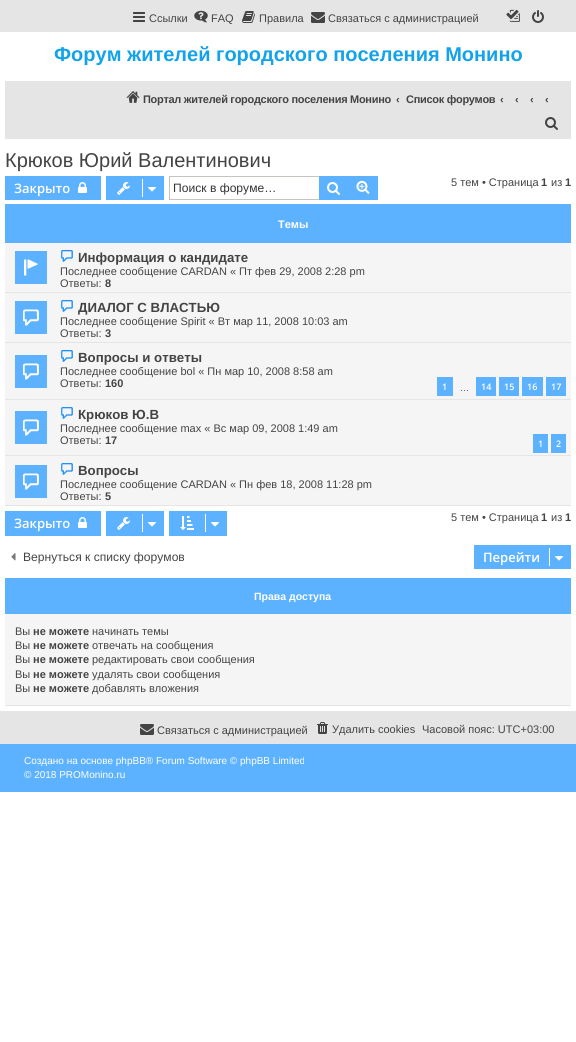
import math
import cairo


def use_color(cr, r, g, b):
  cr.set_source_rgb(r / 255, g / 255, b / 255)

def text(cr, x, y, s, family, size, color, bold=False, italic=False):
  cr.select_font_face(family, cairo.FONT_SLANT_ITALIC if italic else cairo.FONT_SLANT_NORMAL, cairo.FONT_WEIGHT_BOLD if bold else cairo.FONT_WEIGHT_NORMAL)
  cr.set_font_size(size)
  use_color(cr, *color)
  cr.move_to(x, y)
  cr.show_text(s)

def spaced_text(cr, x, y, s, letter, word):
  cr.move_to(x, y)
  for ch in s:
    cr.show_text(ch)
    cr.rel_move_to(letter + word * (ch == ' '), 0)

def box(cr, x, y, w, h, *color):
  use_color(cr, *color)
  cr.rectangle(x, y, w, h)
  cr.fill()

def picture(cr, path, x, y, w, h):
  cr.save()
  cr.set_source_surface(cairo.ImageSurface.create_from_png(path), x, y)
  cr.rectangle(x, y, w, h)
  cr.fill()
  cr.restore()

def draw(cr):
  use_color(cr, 255, 255, 255)
  cr.paint()
  box(cr, 0, 0, 576, 32, 229, 229, 229)
  picture(cr, "img_01.png", 133, 12, 12, 10)
  picture(cr, "img_02.png", 194, 10, 14, 13)
  picture(cr, "img_03.png", 242, 11, 13, 12)
  picture(cr, "img_04.png", 311, 12, 14, 11)
  picture(cr, "img_05.png", 506, 9, 14, 13)
  picture(cr, "img_06.png", 532, 10, 12, 13)
  box(cr, 5, 81, 566, 58, 229, 229, 229)
  picture(cr, "img_07.png", 126, 91, 14, 12)
  picture(cr, "img_08.png", 545, 117, 13, 13)
  box(cr, 5, 176, 96, 24, 93, 178, 255)
  picture(cr, "img_09.png", 78, 182, 9, 11)
  box(cr, 106, 176, 58, 24, 93, 178, 255)
  picture(cr, "img_10.png", 117, 182, 13, 13)
  box(cr, 142, 179, 1, 18, 255, 255, 255)
  picture(cr, "img_11.png", 148, 187, 8, 5)
  box(cr, 169, 176, 150, 1, 199, 195, 191)
  box(cr, 169, 199, 150, 1, 199, 195, 191)
  box(cr, 169, 176, 1, 24, 199, 195, 191)
  box(cr, 319, 176, 30, 24, 93, 178, 255)
  picture(cr, "img_12.png", 327, 182, 13, 13)
  box(cr, 349, 177, 28, 22, 93, 178, 255)
  box(cr, 349, 176, 29, 1, 93, 178, 255)
  box(cr, 377, 176, 1, 24, 93, 178, 255)
  box(cr, 349, 199, 29, 1, 93, 178, 255)
  picture(cr, "img_13.png", 356, 180, 14, 14)
  box(cr, 5, 204, 566, 39, 93, 178, 255)
  box(cr, 5, 243, 566, 49, 245, 245, 245)
  box(cr, 5, 292, 566, 1, 229, 229, 229)
  box(cr, 15, 251, 32, 33, 93, 178, 255)
  picture(cr, "img_14.png", 24, 259, 14, 17)
  picture(cr, "img_15.png", 61, 250, 12, 12)
  box(cr, 5, 293, 566, 49, 245, 245, 245)
  box(cr, 5, 342, 566, 1, 229, 229, 229)
  box(cr, 15, 301, 32, 33, 93, 178, 255)
  picture(cr, "img_16.png", 23, 309, 16, 17)
  picture(cr, "img_15.png", 61, 300, 12, 12)
  box(cr, 5, 343, 566, 56, 245, 245, 245)
  box(cr, 5, 399, 566, 1, 229, 229, 229)
  box(cr, 15, 355, 32, 33, 93, 178, 255)
  picture(cr, "img_16.png", 23, 363, 16, 17)
  picture(cr, "img_15.png", 61, 350, 12, 12)
  box(cr, 437, 377, 16, 19, 93, 178, 255)
  box(cr, 476, 377, 20, 19, 93, 178, 255)
  box(cr, 499, 377, 20, 19, 93, 178, 255)
  box(cr, 522, 377, 21, 19, 93, 178, 255)
  box(cr, 546, 377, 20, 19, 93, 178, 255)
  box(cr, 5, 400, 566, 55, 245, 245, 245)
  box(cr, 5, 455, 566, 1, 229, 229, 229)
  box(cr, 15, 411, 32, 33, 93, 178, 255)
  picture(cr, "img_16.png", 23, 419, 16, 17)
  picture(cr, "img_15.png", 61, 407, 12, 12)
  box(cr, 533, 434, 15, 19, 93, 178, 255)
  box(cr, 551, 434, 15, 19, 93, 178, 255)
  box(cr, 5, 456, 566, 49, 245, 245, 245)
  box(cr, 5, 505, 566, 1, 229, 229, 229)
  box(cr, 15, 465, 32, 33, 93, 178, 255)
  picture(cr, "img_16.png", 23, 473, 16, 17)
  picture(cr, "img_15.png", 61, 463, 12, 12)
  box(cr, 5, 511, 96, 25, 93, 178, 255)
  picture(cr, "img_09.png", 78, 517, 9, 11)
  box(cr, 106, 511, 58, 25, 93, 178, 255)
  picture(cr, "img_10.png", 117, 517, 13, 13)
  box(cr, 142, 514, 1, 18, 255, 255, 255)
  picture(cr, "img_11.png", 148, 522, 8, 5)
  box(cr, 169, 511, 58, 25, 93, 178, 255)
  picture(cr, "img_17.png", 180, 516, 14, 14)
  box(cr, 205, 514, 1, 18, 255, 255, 255)
  picture(cr, "img_11.png", 211, 522, 8, 5)
  picture(cr, "img_18.png", 11, 553, 5, 8)
  box(cr, 474, 545, 97, 24, 93, 178, 255)
  box(cr, 549, 548, 1, 18, 255, 255, 255)
  picture(cr, "img_11.png", 555, 556, 8, 5)
  box(cr, 5, 578, 566, 36, 93, 178, 255)
  box(cr, 5, 614, 566, 91, 245, 245, 245)
  box(cr, 5, 705, 566, 1, 229, 229, 229)
  box(cr, 0, 711, 576, 33, 229, 229, 229)
  picture(cr, "img_04.png", 140, 724, 14, 11)
  picture(cr, "img_19.png", 317, 722, 11, 12)
  box(cr, 0, 744, 576, 48, 93, 178, 255)
  text(cr, 149, 22, "Ссылки", "Liberation Sans", 11, (68, 68, 68))
  text(cr, 211, 22, "FAQ", "Liberation Sans", 11, (68, 68, 68))
  text(cr, 259, 22, "Правила", "Liberation Sans", 11, (68, 68, 68))
  text(cr, 328, 22, "Связаться с администрацией", "Liberation Sans", 11, (68, 68, 68))
  text(cr, 54, 61, "Форум жителей городского поселения Монино", "Liberation Sans", 20, (18, 163, 235), bold=True)
  cr.set_font_size(11)
  use_color(cr, 68, 68, 68)
  spaced_text(cr, 143, 103, "Портал жителей городского поселения Монино", -0.3, 0)
  text(cr, 396, 103, "‹", "Liberation Sans", 11, (68, 68, 68), bold=True)
  spaced_text(cr, 406, 103, "Список форумов", -0.3, 0)
  text(cr, 500, 103, "‹", "Liberation Sans", 11, (68, 68, 68), bold=True)
  text(cr, 515, 103, "‹", "Liberation Sans", 11, (68, 68, 68), bold=True)
  text(cr, 530, 103, "‹", "Liberation Sans", 11, (68, 68, 68), bold=True)
  text(cr, 545, 103, "‹", "Liberation Sans", 11, (68, 68, 68), bold=True)
  text(cr, 5, 167, "Крюков Юрий Валентинович", "Liberation Sans", 20, (68, 68, 68))
  text(cr, 14, 193, "Закрыто", "Open Sans SemiBold", 13, (255, 255, 255))
  text(cr, 173, 192, "Поиск в форуме…", "Liberation Sans", 12.1, (51, 51, 51))
  text(cr, 451, 186, "5 тем • Страница", "Liberation Sans", 11, (68, 68, 68))
  text(cr, 541, 186, "1", "Liberation Sans", 11, (68, 68, 68), bold=True)
  text(cr, 551, 186, "из", "Liberation Sans", 11, (68, 68, 68))
  text(cr, 565, 186, "1", "Liberation Sans", 11, (68, 68, 68), bold=True)
  text(cr, 278, 228, "Темы", "Liberation Sans", 11, (255, 255, 255), bold=True)
  text(cr, 78, 262, "Информация о кандидате", "Liberation Sans", 13.25, (68, 68, 68), bold=True)
  text(cr, 60, 275, "Последнее сообщение CARDAN « Пт фев 29, 2008 2:28 pm", "Liberation Sans", 11, (68, 68, 68))
  text(cr, 60, 287, "Ответы:", "Liberation Sans", 11, (68, 68, 68))
  text(cr, 105, 287, "8", "Liberation Sans", 11, (68, 68, 68), bold=True)
  text(cr, 78, 312, "ДИАЛОГ С ВЛАСТЬЮ", "Liberation Sans", 13.25, (68, 68, 68), bold=True)
  text(cr, 60, 325, "Последнее сообщение Spirit « Вт мар 11, 2008 10:03 am", "Liberation Sans", 11, (68, 68, 68))
  text(cr, 60, 337, "Ответы:", "Liberation Sans", 11, (68, 68, 68))
  text(cr, 105, 337, "3", "Liberation Sans", 11, (68, 68, 68), bold=True)
  text(cr, 78, 362, "Вопросы и ответы", "Liberation Sans", 13.25, (68, 68, 68), bold=True)
  text(cr, 60, 375, "Последнее сообщение bol « Пн мар 10, 2008 8:58 am", "Liberation Sans", 11, (68, 68, 68))
  text(cr, 60, 387, "Ответы:", "Liberation Sans", 11, (68, 68, 68))
  text(cr, 105, 387, "160", "Liberation Sans", 11, (68, 68, 68), bold=True)
  text(cr, 442, 390, "1", "Open Sans SemiBold", 9, (255, 255, 255))
  text(cr, 481, 390, "14", "Open Sans SemiBold", 9, (255, 255, 255))
  text(cr, 504, 390, "15", "Open Sans SemiBold", 9, (255, 255, 255))
  text(cr, 527, 390, "16", "Open Sans SemiBold", 9, (255, 255, 255))
  text(cr, 551, 390, "17", "Open Sans SemiBold", 9, (255, 255, 255))
  text(cr, 460, 391, "…", "Liberation Sans", 9, (68, 68, 68))
  text(cr, 78, 419, "Крюков Ю.В", "Liberation Sans", 13.25, (68, 68, 68), bold=True)
  text(cr, 60, 432, "Последнее сообщение max « Вс мар 09, 2008 1:49 am", "Liberation Sans", 11, (68, 68, 68))
  text(cr, 60, 444, "Ответы:", "Liberation Sans", 11, (68, 68, 68))
  text(cr, 105, 444, "17", "Liberation Sans", 11, (68, 68, 68), bold=True)
  text(cr, 538, 447, "1", "Open Sans SemiBold", 9, (255, 255, 255))
  text(cr, 556, 447, "2", "Open Sans SemiBold", 9, (255, 255, 255))
  text(cr, 78, 475, "Вопросы", "Liberation Sans", 13.25, (68, 68, 68), bold=True)
  text(cr, 60, 488, "Последнее сообщение CARDAN « Пн фев 18, 2008 11:28 pm", "Liberation Sans", 11, (68, 68, 68))
  text(cr, 60, 500, "Ответы:", "Liberation Sans", 11, (68, 68, 68))
  text(cr, 105, 500, "5", "Liberation Sans", 11, (68, 68, 68), bold=True)
  text(cr, 14, 528, "Закрыто", "Open Sans SemiBold", 13, (255, 255, 255))
  text(cr, 451, 521, "5 тем • Страница", "Liberation Sans", 11, (68, 68, 68))
  text(cr, 541, 521, "1", "Liberation Sans", 11, (68, 68, 68), bold=True)
  text(cr, 551, 521, "из", "Liberation Sans", 11, (68, 68, 68))
  text(cr, 565, 521, "1", "Liberation Sans", 11, (68, 68, 68), bold=True)
  text(cr, 23, 561, "Вернуться к списку форумов", "Liberation Sans", 12.1, (68, 68, 68))
  text(cr, 483, 562, "Перейти", "Open Sans SemiBold", 13, (255, 255, 255))
  text(cr, 254, 600, "Права доступа", "Liberation Sans", 10.5, (255, 255, 255), bold=True)
  text(cr, 15, 635, "Вы", "Liberation Sans", 11, (68, 68, 68))
  text(cr, 33, 635, "не можете", "Liberation Sans", 11, (68, 68, 68), bold=True)
  text(cr, 92, 635, "начинать темы", "Liberation Sans", 11, (68, 68, 68))
  text(cr, 15, 649, "Вы", "Liberation Sans", 11, (68, 68, 68))
  text(cr, 33, 649, "не можете", "Liberation Sans", 11, (68, 68, 68), bold=True)
  text(cr, 92, 649, "отвечать на сообщения", "Liberation Sans", 11, (68, 68, 68))
  text(cr, 15, 663, "Вы", "Liberation Sans", 11, (68, 68, 68))
  text(cr, 33, 663, "не можете", "Liberation Sans", 11, (68, 68, 68), bold=True)
  text(cr, 92, 663, "редактировать свои сообщения", "Liberation Sans", 11, (68, 68, 68))
  text(cr, 15, 678, "Вы", "Liberation Sans", 11, (68, 68, 68))
  text(cr, 33, 678, "не можете", "Liberation Sans", 11, (68, 68, 68), bold=True)
  text(cr, 92, 678, "удалять свои сообщения", "Liberation Sans", 11, (68, 68, 68))
  text(cr, 15, 692, "Вы", "Liberation Sans", 11, (68, 68, 68))
  text(cr, 33, 692, "не можете", "Liberation Sans", 11, (68, 68, 68), bold=True)
  text(cr, 92, 692, "добавлять вложения", "Liberation Sans", 11, (68, 68, 68))
  text(cr, 157, 734, "Связаться с администрацией", "Liberation Sans", 11, (68, 68, 68))
  text(cr, 332, 733, "Удалить cookies", "Liberation Sans", 11, (68, 68, 68))
  text(cr, 422, 733, "Часовой пояс: UTC+03:00", "Liberation Sans", 11, (68, 68, 68))
  text(cr, 24, 764, "Создано на основе phpBB® Forum Software © phpBB Limited", "Liberation Sans", 10, (255, 255, 255))
  text(cr, 24, 778, "© 2018 PROMonino.ru", "Liberation Sans", 10, (255, 255, 255))


surface = cairo.ImageSurface(cairo.FORMAT_RGB24, 576, 1042)
cr = cairo.Context(surface)
options = cairo.FontOptions()
options.set_hint_metrics(cairo.HINT_METRICS_OFF)
options.set_hint_style(cairo.HINT_STYLE_NONE)
cr.set_font_options(options)
cr.set_miter_limit(4)
draw(cr)
surface.write_to_png("out.png")
